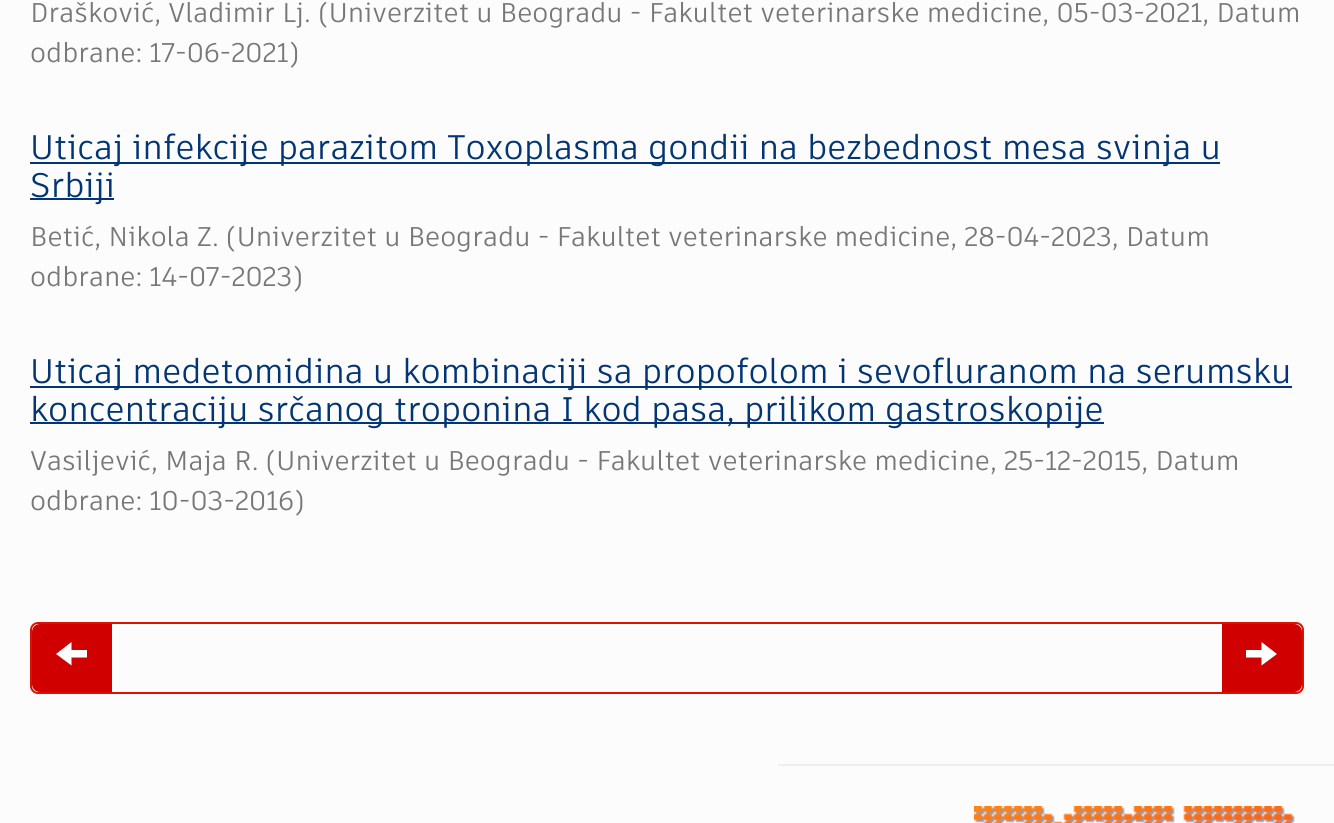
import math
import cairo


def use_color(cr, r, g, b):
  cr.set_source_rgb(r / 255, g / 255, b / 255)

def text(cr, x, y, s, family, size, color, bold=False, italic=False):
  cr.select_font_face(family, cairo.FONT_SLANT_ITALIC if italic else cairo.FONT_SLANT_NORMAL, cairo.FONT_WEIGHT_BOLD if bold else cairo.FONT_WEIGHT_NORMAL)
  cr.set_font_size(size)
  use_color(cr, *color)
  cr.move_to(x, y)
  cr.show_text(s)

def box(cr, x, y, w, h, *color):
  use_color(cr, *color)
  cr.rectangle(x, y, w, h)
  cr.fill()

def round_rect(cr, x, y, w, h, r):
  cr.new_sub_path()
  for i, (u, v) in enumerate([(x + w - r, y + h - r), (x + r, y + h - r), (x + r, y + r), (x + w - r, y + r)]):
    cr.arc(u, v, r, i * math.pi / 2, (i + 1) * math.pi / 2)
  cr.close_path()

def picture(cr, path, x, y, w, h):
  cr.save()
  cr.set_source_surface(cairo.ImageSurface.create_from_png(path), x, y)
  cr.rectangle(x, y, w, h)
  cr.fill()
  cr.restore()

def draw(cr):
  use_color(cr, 252, 252, 252)
  cr.paint()
  box(cr, 30, 162, 1190, 2, 2, 53, 115)
  box(cr, 30, 198, 84, 2, 2, 53, 115)
  box(cr, 30, 386, 1262, 2, 2, 53, 115)
  box(cr, 30, 422, 1074, 2, 2, 53, 115)
  round_rect(cr, 31, 623, 1272, 70, 7)
  use_color(cr, 221, 17, 0)
  cr.stroke()
  use_color(cr, 209, 0, 0)
  cr.new_path()
  cr.move_to(40, 624)
  cr.line_to(112, 624)
  cr.line_to(112, 692)
  cr.line_to(40, 692)
  cr.curve_to(35.5, 692, 32, 688.5, 32, 684)
  cr.line_to(32, 632)
  cr.curve_to(32, 627.5, 35.5, 624, 40, 624)
  cr.close_path()
  cr.fill()
  use_color(cr, 255, 255, 255)
  cr.new_path()
  cr.move_to(56, 654)
  cr.line_to(71.5, 642)
  cr.line_to(71.5, 650)
  cr.line_to(87, 650)
  cr.line_to(87, 657.5)
  cr.line_to(71.5, 657.5)
  cr.line_to(71.5, 665.5)
  cr.close_path()
  cr.fill()
  use_color(cr, 209, 0, 0)
  cr.new_path()
  cr.move_to(1220, 624)
  cr.line_to(1294, 624)
  cr.curve_to(1298.5, 624, 1302, 627.5, 1302, 632)
  cr.line_to(1302, 684)
  cr.curve_to(1302, 688.5, 1298.5, 692, 1294, 692)
  cr.line_to(1220, 692)
  cr.close_path()
  cr.fill()
  box(cr, 1220, 624, 2, 68, 252, 252, 252)
  use_color(cr, 255, 255, 255)
  cr.new_path()
  cr.move_to(1246, 657.5)
  cr.line_to(1246, 650)
  cr.line_to(1261.5, 650)
  cr.line_to(1261.5, 642)
  cr.line_to(1277, 654)
  cr.line_to(1261.5, 665.5)
  cr.line_to(1261.5, 657.5)
  cr.close_path()
  cr.fill()
  box(cr, 778, 764, 556, 2, 238, 238, 238)
  picture(cr, "img_01.png", 974, 806, 321, 17)
  text(cr, 30, 22, "Drašković, Vladimir Lj. (Univerzitet u Beogradu - Fakultet veterinarske medicine, 05-03-2021, Datum", "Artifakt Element", 27, (119, 119, 119))
  text(cr, 30, 62, "odbrane: 17-06-2021)", "Artifakt Element", 27, (119, 119, 119))
  text(cr, 30, 159, "Uticaj infekcije parazitom Toxoplasma gondii na bezbednost mesa svinja u", "Artifakt Element", 34, (2, 53, 115))
  text(cr, 30, 197, "Srbiji", "Artifakt Element", 34, (2, 53, 115))
  text(cr, 30, 246, "Betić, Nikola Z. (Univerzitet u Beogradu - Fakultet veterinarske medicine, 28-04-2023, Datum", "Artifakt Element", 27, (119, 119, 119))
  text(cr, 30, 286, "odbrane: 14-07-2023)", "Artifakt Element", 27, (119, 119, 119))
  text(cr, 30, 383, "Uticaj medetomidina u kombinaciji sa propofolom i sevofluranom na serumsku", "Artifakt Element", 34, (2, 53, 115))
  text(cr, 30, 421, "koncentraciju srčanog troponina I kod pasa, prilikom gastroskopije", "Artifakt Element", 34, (2, 53, 115))
  text(cr, 30, 470, "Vasiljević, Maja R. (Univerzitet u Beogradu - Fakultet veterinarske medicine, 25-12-2015, Datum", "Artifakt Element", 27, (119, 119, 119))
  text(cr, 30, 510, "odbrane: 10-03-2016)", "Artifakt Element", 27, (119, 119, 119))


surface = cairo.ImageSurface(cairo.FORMAT_RGB24, 1334, 823)
cr = cairo.Context(surface)
options = cairo.FontOptions()
options.set_hint_metrics(cairo.HINT_METRICS_OFF)
options.set_hint_style(cairo.HINT_STYLE_NONE)
cr.set_font_options(options)
cr.set_miter_limit(4)
draw(cr)
surface.write_to_png("out.png")
